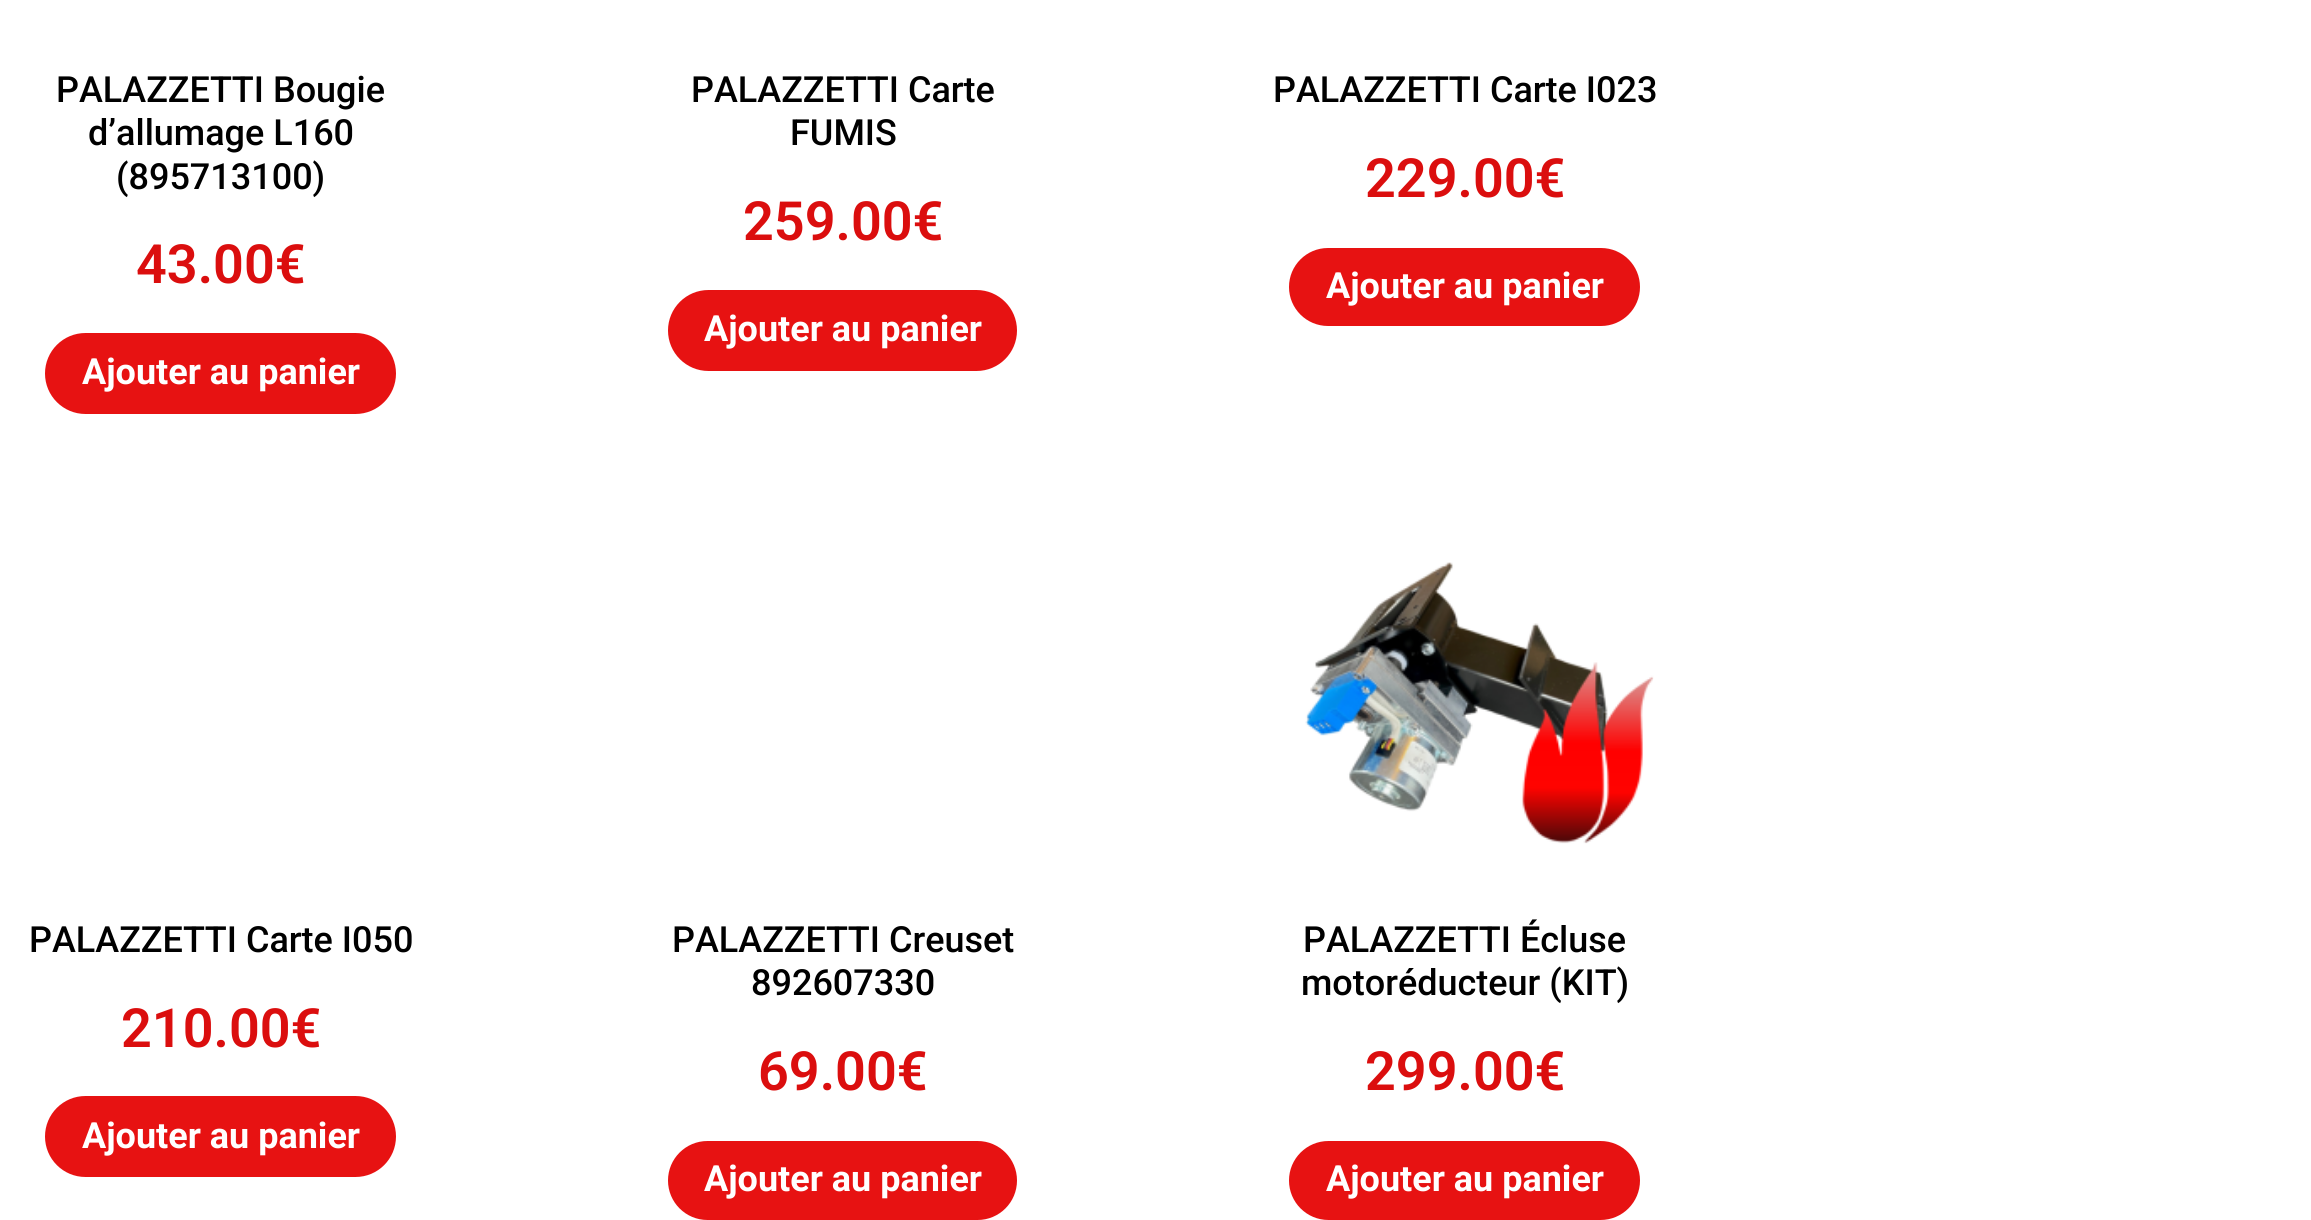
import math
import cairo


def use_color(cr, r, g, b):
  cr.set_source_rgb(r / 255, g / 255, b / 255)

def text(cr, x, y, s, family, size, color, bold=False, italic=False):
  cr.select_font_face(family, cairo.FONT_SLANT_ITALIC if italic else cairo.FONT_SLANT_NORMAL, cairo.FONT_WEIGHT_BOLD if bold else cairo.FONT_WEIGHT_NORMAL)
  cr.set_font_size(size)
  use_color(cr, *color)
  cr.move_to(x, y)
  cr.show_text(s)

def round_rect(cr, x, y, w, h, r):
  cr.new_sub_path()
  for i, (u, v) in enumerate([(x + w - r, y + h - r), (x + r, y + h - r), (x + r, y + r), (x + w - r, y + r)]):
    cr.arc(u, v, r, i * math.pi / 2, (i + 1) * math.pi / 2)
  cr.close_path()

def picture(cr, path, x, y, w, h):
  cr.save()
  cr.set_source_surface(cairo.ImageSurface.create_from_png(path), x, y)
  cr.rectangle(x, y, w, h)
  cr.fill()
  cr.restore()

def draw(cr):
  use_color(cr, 255, 255, 255)
  cr.paint()
  use_color(cr, 231, 18, 18)
  round_rect(cr, 45, 333, 351, 81, 40.5)
  cr.fill()
  round_rect(cr, 668, 290, 349, 81, 40.5)
  cr.fill()
  round_rect(cr, 1289, 248, 351, 78, 39)
  cr.fill()
  round_rect(cr, 45, 1096, 351, 81, 40.5)
  cr.fill()
  round_rect(cr, 668, 1141, 349, 79, 39.5)
  cr.fill()
  picture(cr, "img_01.png", 1305, 562, 349, 282)
  round_rect(cr, 1289, 1141, 351, 79, 39.5)
  cr.fill()
  text(cr, 56, 102, "PALAZZETTI Bougie", "Roboto Medium", 36, (0, 0, 0))
  text(cr, 88, 145, "d’allumage L160", "Roboto Medium", 36, (0, 0, 0))
  text(cr, 116, 189, "(895713100)", "Roboto Medium", 36, (0, 0, 0))
  text(cr, 136, 283, "43.00€", "Roboto SemiBold", 54, (219, 14, 14))
  text(cr, 82, 384, "Ajouter au panier", "Roboto", 36, (255, 255, 255), bold=True)
  text(cr, 691, 102, "PALAZZETTI Carte", "Roboto Medium", 36, (0, 0, 0))
  text(cr, 790, 145, "FUMIS", "Roboto Medium", 36, (0, 0, 0))
  text(cr, 743, 240, "259.00€", "Roboto SemiBold", 54, (219, 14, 14))
  text(cr, 704, 341, "Ajouter au panier", "Roboto", 36, (255, 255, 255), bold=True)
  text(cr, 1273, 102, "PALAZZETTI Carte I023", "Roboto Medium", 36, (0, 0, 0))
  text(cr, 1365, 197, "229.00€", "Roboto SemiBold", 54, (219, 14, 14))
  text(cr, 1326, 298, "Ajouter au panier", "Roboto", 36, (255, 255, 255), bold=True)
  text(cr, 29, 952, "PALAZZETTI Carte I050", "Roboto Medium", 36, (0, 0, 0))
  text(cr, 121, 1047, "210.00€", "Roboto SemiBold", 54, (219, 14, 14))
  text(cr, 82, 1148, "Ajouter au panier", "Roboto", 36, (255, 255, 255), bold=True)
  text(cr, 672, 952, "PALAZZETTI Creuset", "Roboto Medium", 36, (0, 0, 0))
  text(cr, 751, 995, "892607330", "Roboto Medium", 36, (0, 0, 0))
  text(cr, 758, 1090, "69.00€", "Roboto SemiBold", 54, (219, 14, 14))
  text(cr, 704, 1191, "Ajouter au panier", "Roboto", 36, (255, 255, 255), bold=True)
  text(cr, 1303, 952, "PALAZZETTI Écluse", "Roboto Medium", 36, (0, 0, 0))
  text(cr, 1301, 995, "motoréducteur (KIT)", "Roboto Medium", 36, (0, 0, 0))
  text(cr, 1365, 1090, "299.00€", "Roboto SemiBold", 54, (219, 14, 14))
  text(cr, 1326, 1191, "Ajouter au panier", "Roboto", 36, (255, 255, 255), bold=True)


surface = cairo.ImageSurface(cairo.FORMAT_RGB24, 2311, 1220)
cr = cairo.Context(surface)
options = cairo.FontOptions()
options.set_hint_metrics(cairo.HINT_METRICS_OFF)
options.set_hint_style(cairo.HINT_STYLE_NONE)
cr.set_font_options(options)
cr.set_miter_limit(4)
draw(cr)
surface.write_to_png("out.png")
